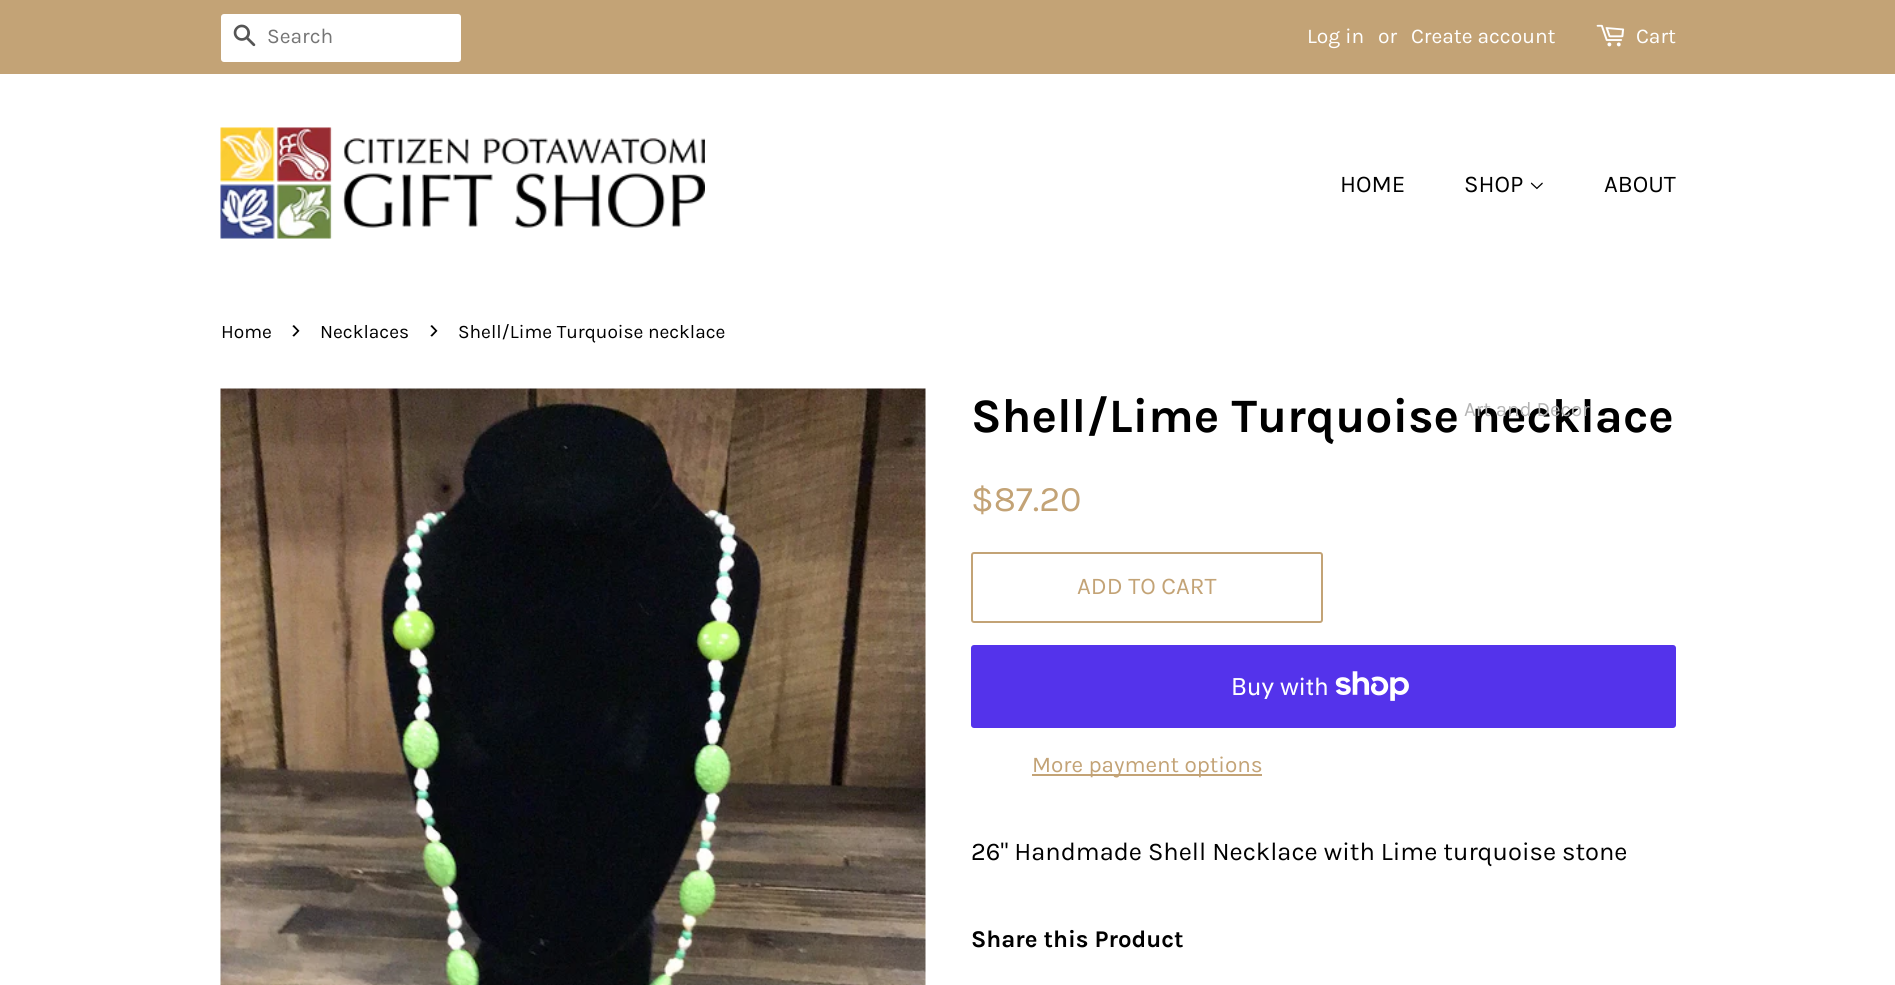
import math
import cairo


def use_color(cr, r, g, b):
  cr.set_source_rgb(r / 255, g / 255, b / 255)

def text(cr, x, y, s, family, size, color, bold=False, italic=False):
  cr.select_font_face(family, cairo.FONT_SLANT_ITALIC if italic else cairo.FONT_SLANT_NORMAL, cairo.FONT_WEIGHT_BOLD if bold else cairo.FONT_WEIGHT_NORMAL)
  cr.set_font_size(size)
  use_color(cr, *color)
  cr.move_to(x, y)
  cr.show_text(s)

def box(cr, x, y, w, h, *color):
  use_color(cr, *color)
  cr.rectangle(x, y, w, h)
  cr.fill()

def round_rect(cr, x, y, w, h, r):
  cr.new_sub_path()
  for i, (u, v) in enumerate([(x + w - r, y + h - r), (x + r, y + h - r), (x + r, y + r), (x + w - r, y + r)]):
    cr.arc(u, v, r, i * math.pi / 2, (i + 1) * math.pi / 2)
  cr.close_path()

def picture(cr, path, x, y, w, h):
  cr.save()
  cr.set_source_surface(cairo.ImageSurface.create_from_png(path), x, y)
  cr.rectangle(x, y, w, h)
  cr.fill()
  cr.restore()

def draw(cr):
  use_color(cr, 255, 255, 255)
  cr.paint()
  box(cr, 0, 0, 1895, 74, 195, 163, 118)
  use_color(cr, 255, 255, 255)
  round_rect(cr, 221, 14, 240, 48, 3)
  cr.fill()
  picture(cr, "img_01.png", 233, 24, 23, 23)
  picture(cr, "img_02.png", 1596, 24, 29, 23)
  picture(cr, "img_03.png", 220, 127, 485, 112)
  picture(cr, "img_04.png", 1530, 182, 13, 8)
  picture(cr, "img_05.png", 220, 388, 706, 597)
  round_rect(cr, 972, 553, 350, 69, 2)
  use_color(cr, 195, 163, 118)
  cr.stroke()
  use_color(cr, 84, 51, 235)
  round_rect(cr, 971, 645, 705, 83, 3)
  cr.fill()
  picture(cr, "img_06.png", 1335, 671, 74, 30)
  box(cr, 1032, 774, 230, 2, 195, 163, 118)
  text(cr, 267, 43, "Search", "Karla", 21, (117, 117, 117))
  text(cr, 1307, 43, "Log in", "Karla", 21, (255, 255, 255))
  text(cr, 1378, 43, "or", "Karla", 21, (255, 255, 255))
  text(cr, 1411, 43, "Create account", "Karla", 21, (255, 255, 255))
  text(cr, 1636, 43, "Cart", "Karla", 21, (255, 255, 255))
  text(cr, 1340, 192, "HOME", "Karla", 24, (0, 0, 0))
  text(cr, 1464, 192, "SHOP", "Karla", 24, (0, 0, 0))
  text(cr, 1604, 192, "ABOUT", "Karla", 24, (0, 0, 0))
  text(cr, 221, 338, "Home", "Karla", 19.1, (0, 0, 0))
  text(cr, 291, 338, "›", "Karla", 27, (0, 0, 0))
  text(cr, 320, 338, "Necklaces", "Karla", 19.1, (0, 0, 0))
  text(cr, 429, 338, "›", "Karla", 27, (0, 0, 0))
  text(cr, 458, 338, "Shell/Lime Turquoise necklace", "Karla", 19.1, (0, 0, 0))
  text(cr, 971, 432, "Shell/Lime Turquoise necklace", "Karla", 48, (0, 0, 0), bold=True)
  text(cr, 1464, 416, "Art and Decor", "Karla", 20.5, (180, 180, 180))
  text(cr, 971, 511, "$87.20", "Karla", 36, (195, 163, 118))
  text(cr, 1077, 594, "ADD TO CART", "Karla", 24, (195, 163, 118))
  text(cr, 1231, 695, "Buy with", "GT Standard", 24, (255, 255, 255))
  text(cr, 1032, 772, "More payment options", "Karla", 22.5, (195, 163, 118))
  text(cr, 971, 860, "26\" Handmade Shell Necklace with Lime turquoise stone", "Karla", 25.5, (0, 0, 0))
  text(cr, 971, 947, "Share this Product", "Karla", 24, (0, 0, 0), bold=True)


surface = cairo.ImageSurface(cairo.FORMAT_RGB24, 1895, 985)
cr = cairo.Context(surface)
options = cairo.FontOptions()
options.set_hint_metrics(cairo.HINT_METRICS_OFF)
options.set_hint_style(cairo.HINT_STYLE_NONE)
cr.set_font_options(options)
cr.set_miter_limit(4)
draw(cr)
surface.write_to_png("out.png")
